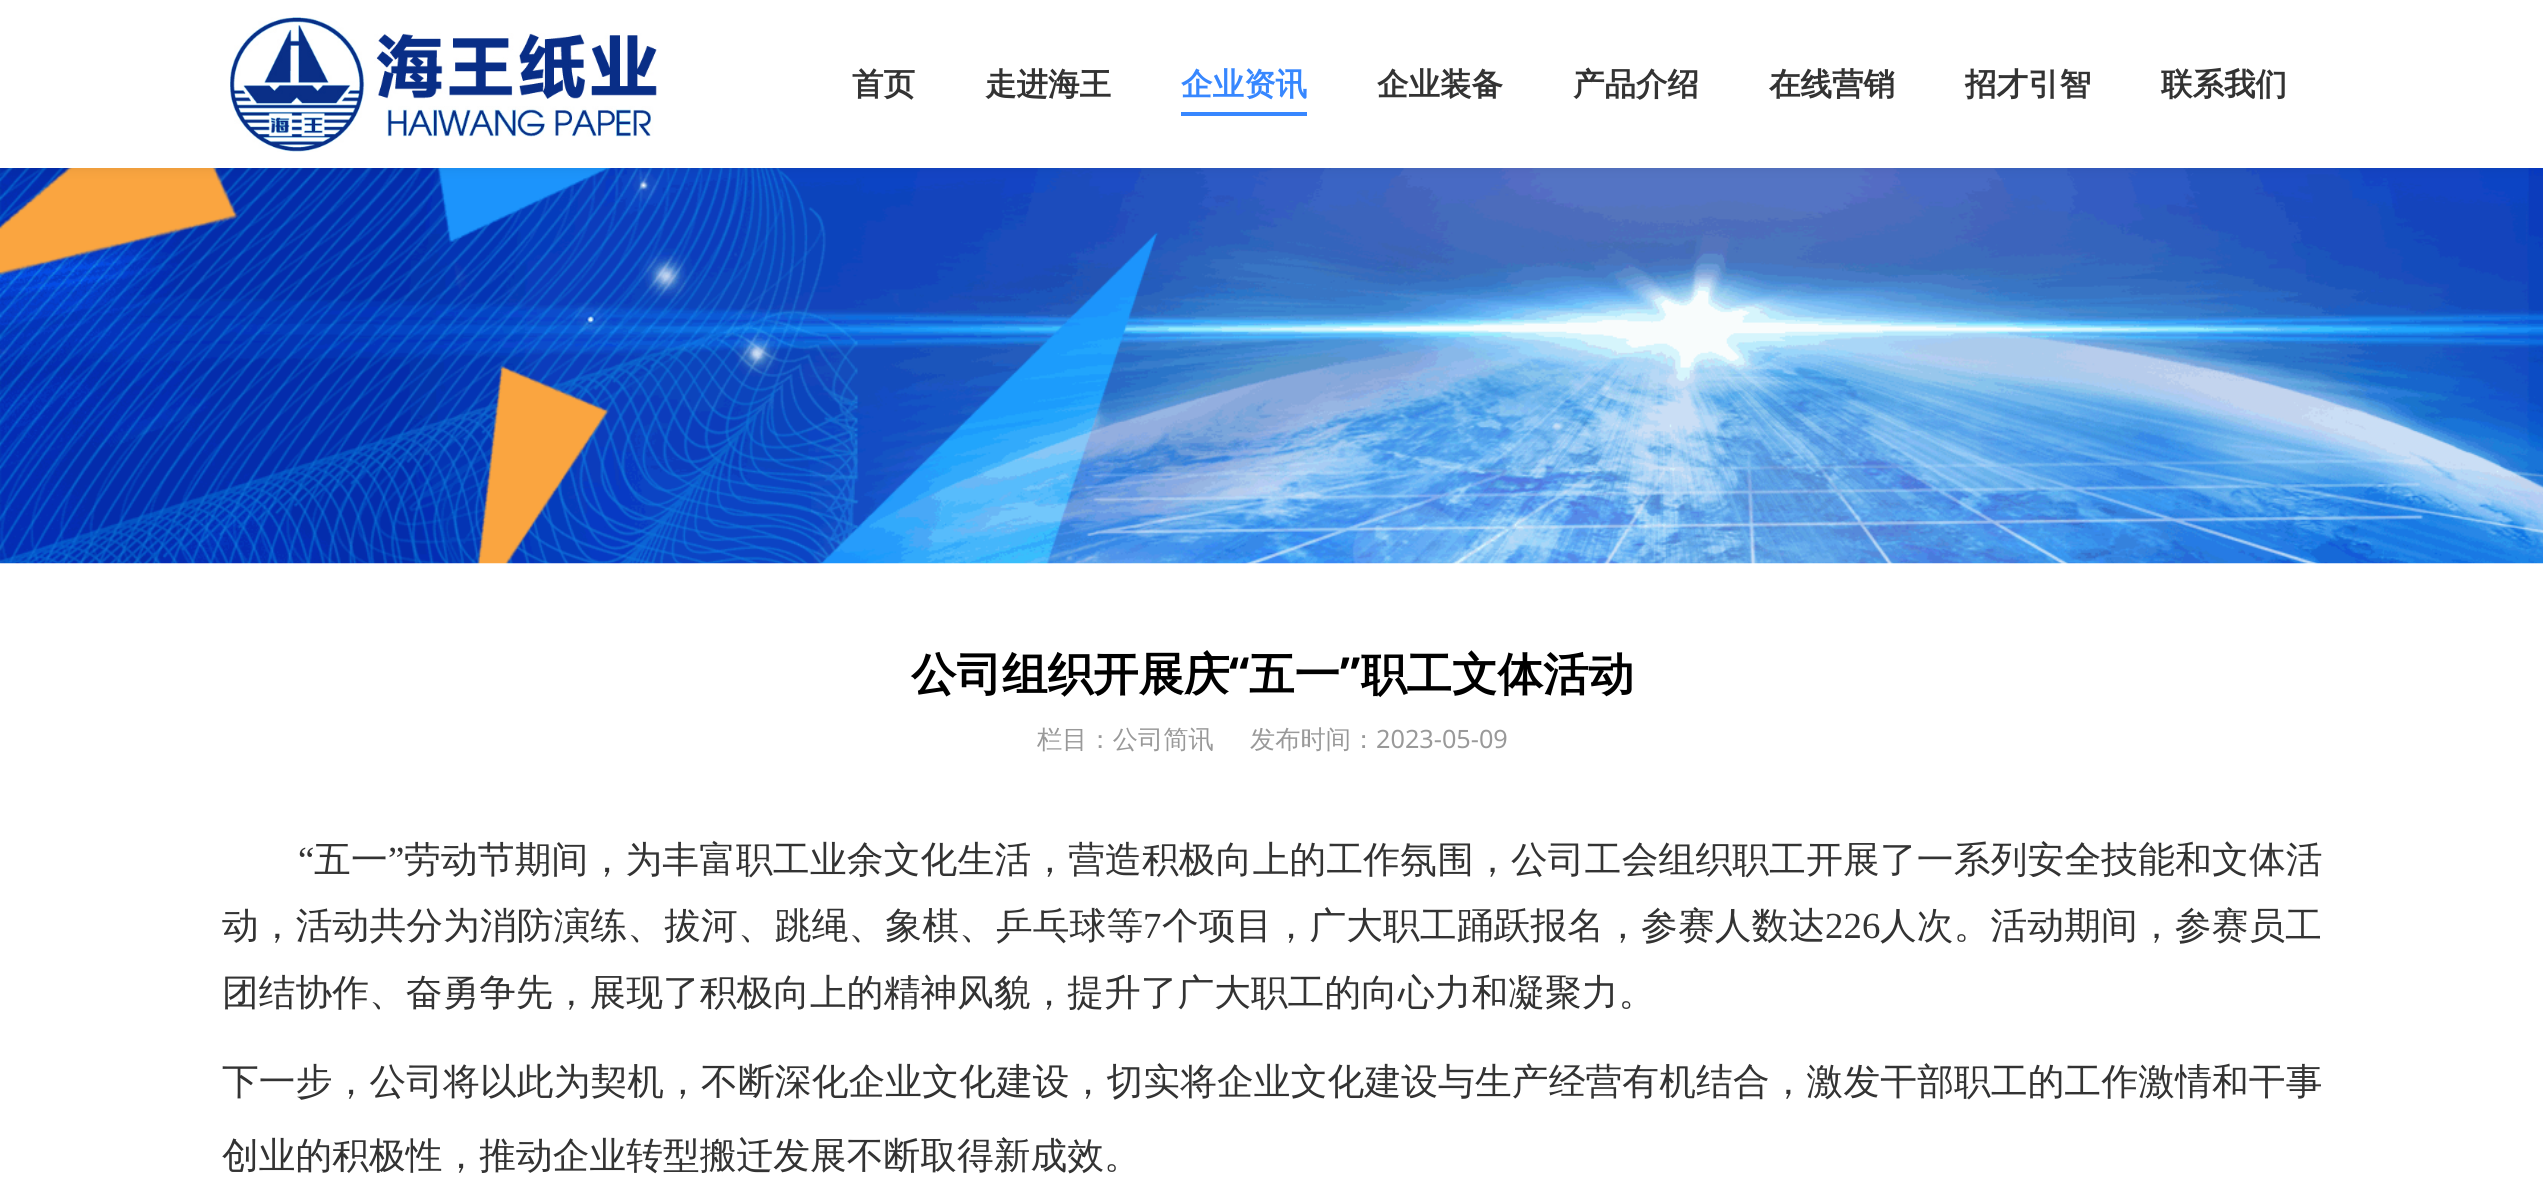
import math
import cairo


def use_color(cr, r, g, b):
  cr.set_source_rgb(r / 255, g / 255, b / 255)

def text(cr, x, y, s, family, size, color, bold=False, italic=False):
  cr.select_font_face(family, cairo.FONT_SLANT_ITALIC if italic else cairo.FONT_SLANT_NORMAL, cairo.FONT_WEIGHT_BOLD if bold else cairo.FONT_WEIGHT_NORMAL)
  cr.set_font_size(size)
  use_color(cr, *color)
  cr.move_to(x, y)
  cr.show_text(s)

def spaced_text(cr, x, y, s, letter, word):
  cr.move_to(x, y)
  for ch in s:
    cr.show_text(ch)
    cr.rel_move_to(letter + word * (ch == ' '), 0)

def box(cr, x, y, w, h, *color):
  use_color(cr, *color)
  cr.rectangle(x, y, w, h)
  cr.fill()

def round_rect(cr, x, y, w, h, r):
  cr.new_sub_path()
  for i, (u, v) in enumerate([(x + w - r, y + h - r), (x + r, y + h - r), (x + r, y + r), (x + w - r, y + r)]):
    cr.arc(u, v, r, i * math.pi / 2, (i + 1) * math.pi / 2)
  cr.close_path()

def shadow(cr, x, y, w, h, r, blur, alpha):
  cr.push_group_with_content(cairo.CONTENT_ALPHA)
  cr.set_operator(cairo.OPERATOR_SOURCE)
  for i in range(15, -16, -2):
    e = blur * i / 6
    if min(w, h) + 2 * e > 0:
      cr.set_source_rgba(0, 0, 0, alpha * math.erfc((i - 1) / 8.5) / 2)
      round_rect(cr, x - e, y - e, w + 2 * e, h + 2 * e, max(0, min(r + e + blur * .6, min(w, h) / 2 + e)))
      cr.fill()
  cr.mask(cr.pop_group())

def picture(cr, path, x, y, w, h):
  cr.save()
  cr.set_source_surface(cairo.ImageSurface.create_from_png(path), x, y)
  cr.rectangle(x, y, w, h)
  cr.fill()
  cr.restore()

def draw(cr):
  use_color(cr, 255, 255, 255)
  cr.paint()
  picture(cr, "img_02.png", 0, 168, 2543, 396)
  use_color(cr, 0, 0, 0)
  shadow(cr, 0, 4, 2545, 168, 0, 4.5, 0.05)
  box(cr, 0, 0, 2543, 168, 255, 255, 255)
  picture(cr, "img_01.png", 230, 17, 427, 135)
  box(cr, 1181, 112, 126, 4, 55, 135, 255)
  text(cr, 852, 95, "首页", "WenQuanYi Zen Hei", 31.5, (51, 51, 51), bold=True)
  text(cr, 985, 95, "走进海王", "WenQuanYi Zen Hei", 31.5, (51, 51, 51), bold=True)
  text(cr, 1181, 95, "企业资讯", "WenQuanYi Zen Hei", 31.5, (55, 135, 255), bold=True)
  text(cr, 1377, 95, "企业装备", "WenQuanYi Zen Hei", 31.5, (51, 51, 51), bold=True)
  text(cr, 1573, 95, "产品介绍", "WenQuanYi Zen Hei", 31.5, (51, 51, 51), bold=True)
  text(cr, 1769, 95, "在线营销", "WenQuanYi Zen Hei", 31.5, (51, 51, 51), bold=True)
  text(cr, 1965, 95, "招才引智", "WenQuanYi Zen Hei", 31.5, (51, 51, 51), bold=True)
  text(cr, 2161, 95, "联系我们", "WenQuanYi Zen Hei", 31.5, (51, 51, 51), bold=True)
  text(cr, 911, 690, "公司组织开展庆", "WenQuanYi Zen Hei", 45.5, (0, 0, 0), bold=True)
  text(cr, 1229, 690, "“", "Noto Sans", 45.5, (0, 0, 0), bold=True)
  text(cr, 1249, 690, "五一", "WenQuanYi Zen Hei", 45.5, (0, 0, 0), bold=True)
  text(cr, 1340, 690, "”", "Noto Sans", 45.5, (0, 0, 0), bold=True)
  text(cr, 1361, 690, "职工文体活动", "WenQuanYi Zen Hei", 45.5, (0, 0, 0), bold=True)
  text(cr, 1037, 748, "栏目：公司简讯", "WenQuanYi Zen Hei Medium", 25.25, (153, 153, 153))
  text(cr, 1250, 748, "发布时间：", "WenQuanYi Zen Hei Medium", 25.25, (153, 153, 153))
  text(cr, 1376, 748, "2023-05-09", "Noto Sans", 25.25, (153, 153, 153))
  cr.select_font_face("Liberation Serif")
  cr.set_font_size(36.75)
  use_color(cr, 51, 51, 51)
  spaced_text(cr, 298, 872, "“", 0.15, 0)
  cr.select_font_face("WenQuanYi Zen Hei Medium")
  spaced_text(cr, 314, 872, "五一", 0.15, 0)
  cr.select_font_face("Liberation Serif")
  spaced_text(cr, 388, 872, "”", 0.15, 0)
  cr.select_font_face("WenQuanYi Zen Hei Medium")
  spaced_text(cr, 404, 872, "劳动节期间，为丰富职工业余文化生活，营造积极向上的工作氛围，公司工会组织职工开展了一系列安全技能和文体活", 0.15, 0)
  spaced_text(cr, 222, 938, "动，活动共分为消防演练、拔河、跳绳、象棋、乒乓球等", 0.1, 0)
  cr.select_font_face("Liberation Serif")
  spaced_text(cr, 1143, 938, "7", 0.1, 0)
  cr.select_font_face("WenQuanYi Zen Hei Medium")
  spaced_text(cr, 1162, 938, "个项目，广大职工踊跃报名，参赛人数达", 0.1, 0)
  cr.select_font_face("Liberation Serif")
  spaced_text(cr, 1825, 938, "226", 0.1, 0)
  cr.select_font_face("WenQuanYi Zen Hei Medium")
  spaced_text(cr, 1880, 938, "人次。活动期间，参赛员工", 0.1, 0)
  text(cr, 222, 1005, "团结协作、奋勇争先，展现了积极向上的精神风貌，提升了广大职工的向心力和凝聚力。", "WenQuanYi Zen Hei Medium", 36.75, (51, 51, 51))
  spaced_text(cr, 222, 1094, "下一步，公司将以此为契机，不断深化企业文化建设，切实将企业文化建设与生产经营有机结合，激发干部职工的工作激情和干事", 0.1, 0)
  text(cr, 222, 1168, "创业的积极性，推动企业转型搬迁发展不断取得新成效。", "WenQuanYi Zen Hei Medium", 36.75, (51, 51, 51))


surface = cairo.ImageSurface(cairo.FORMAT_RGB24, 2543, 1177)
cr = cairo.Context(surface)
options = cairo.FontOptions()
options.set_hint_metrics(cairo.HINT_METRICS_OFF)
options.set_hint_style(cairo.HINT_STYLE_NONE)
cr.set_font_options(options)
cr.set_miter_limit(4)
draw(cr)
surface.write_to_png("out.png")
